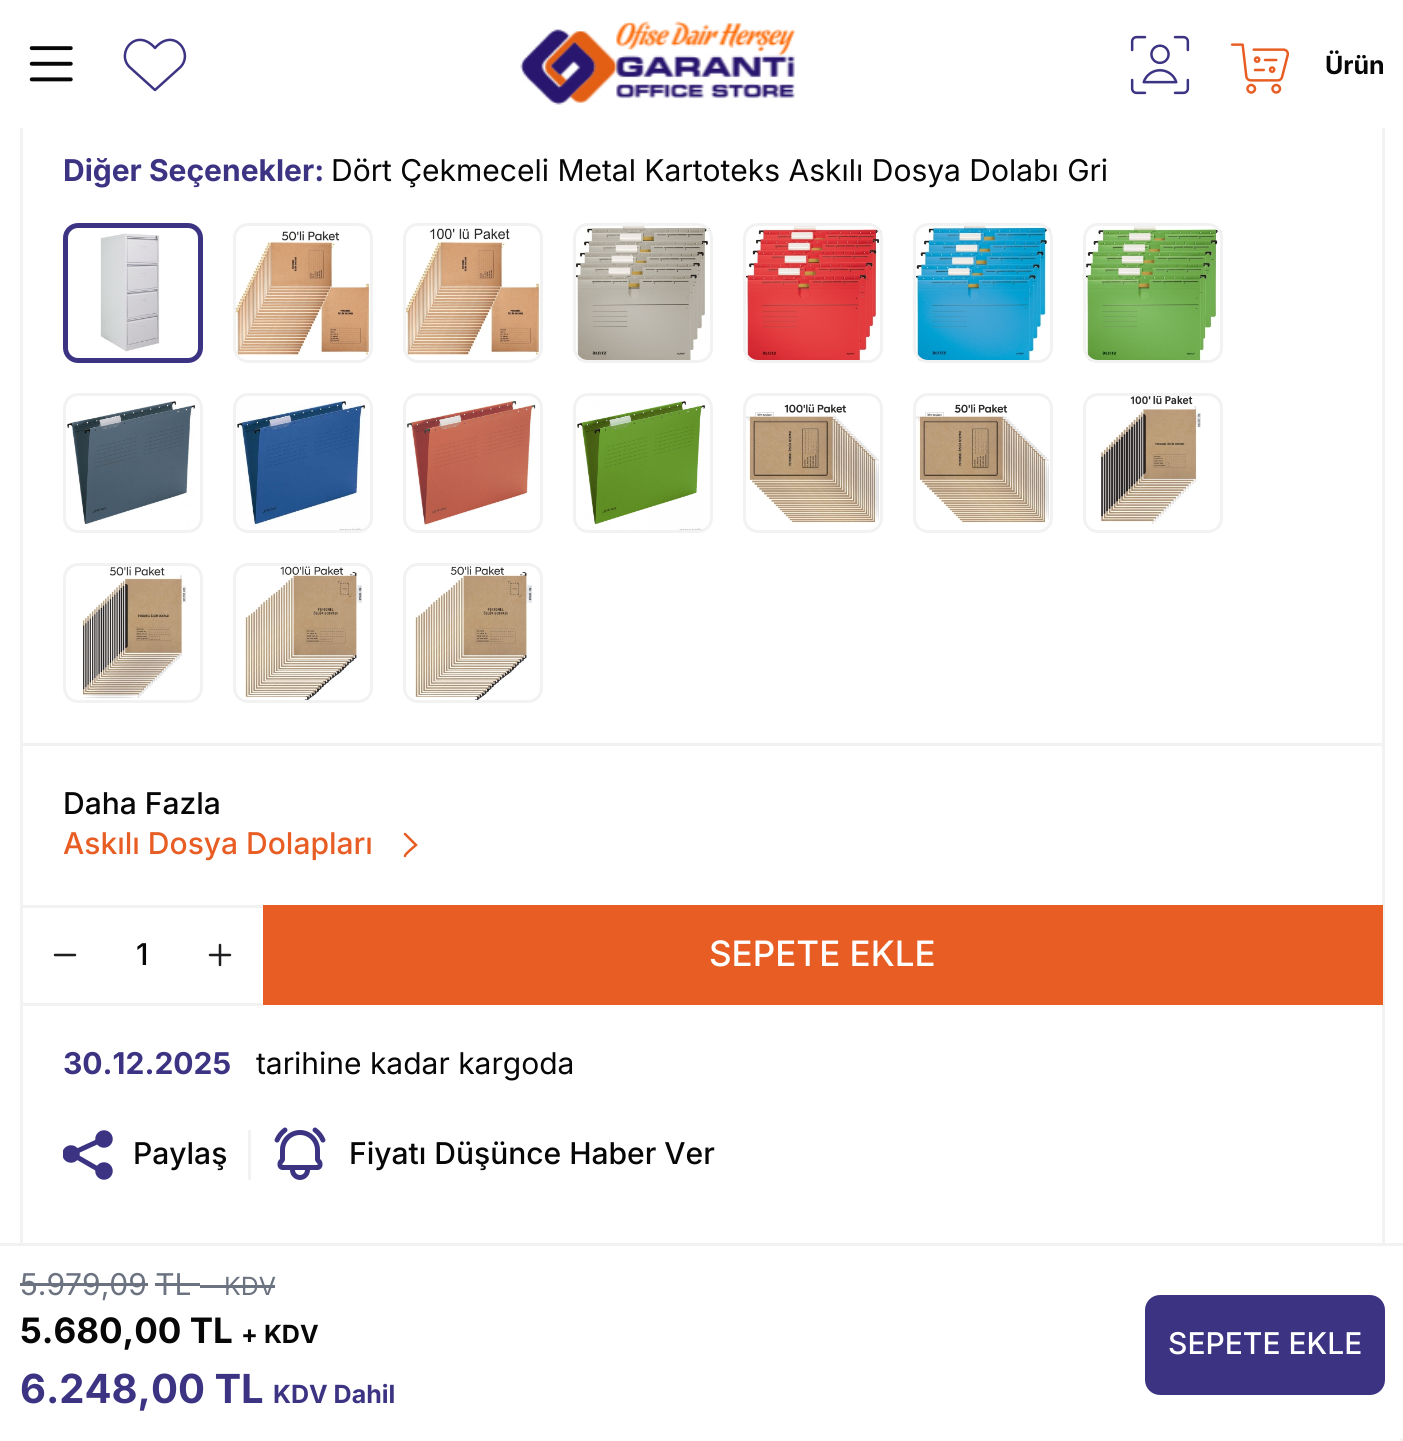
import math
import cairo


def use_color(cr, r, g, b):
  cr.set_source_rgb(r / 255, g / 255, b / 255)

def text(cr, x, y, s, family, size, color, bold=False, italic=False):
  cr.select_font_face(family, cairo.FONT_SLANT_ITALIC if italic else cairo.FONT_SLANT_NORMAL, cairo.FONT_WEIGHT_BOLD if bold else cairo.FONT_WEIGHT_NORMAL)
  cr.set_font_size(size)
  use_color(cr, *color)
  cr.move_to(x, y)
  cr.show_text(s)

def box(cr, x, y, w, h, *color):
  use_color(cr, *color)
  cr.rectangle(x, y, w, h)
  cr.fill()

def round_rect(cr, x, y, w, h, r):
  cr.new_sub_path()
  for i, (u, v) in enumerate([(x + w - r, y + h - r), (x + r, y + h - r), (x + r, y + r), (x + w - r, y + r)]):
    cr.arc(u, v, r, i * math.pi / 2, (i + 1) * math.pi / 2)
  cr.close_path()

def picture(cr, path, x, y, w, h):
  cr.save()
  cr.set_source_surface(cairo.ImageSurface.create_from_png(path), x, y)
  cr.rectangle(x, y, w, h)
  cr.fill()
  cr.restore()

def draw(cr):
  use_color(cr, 255, 255, 255)
  cr.paint()
  cr.rectangle(21.5, -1.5, 1362, 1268)
  use_color(cr, 242, 242, 242)
  cr.set_line_width(3)
  cr.stroke()
  box(cr, 20, 0, 1365, 128, 255, 255, 255)
  picture(cr, "img_01.png", 29, 46, 44, 36)
  cr.new_path()
  cr.move_to(155, 90)
  cr.line_to(129.5, 67)
  cr.curve_to(115.5, 53, 136, 26.5, 155, 48)
  cr.curve_to(174, 26.5, 194, 53, 180.5, 67)
  cr.close_path()
  use_color(cr, 60, 52, 131)
  cr.set_line_width(2.5)
  cr.set_line_cap(cairo.LINE_CAP_ROUND)
  cr.set_line_join(cairo.LINE_JOIN_ROUND)
  cr.stroke()
  picture(cr, "img_02.png", 520, 21, 275, 84)
  picture(cr, "img_03.png", 1130, 35, 60, 60)
  picture(cr, "img_04.png", 1230, 43, 60, 51)
  box(cr, 23, 743, 1360, 3, 243, 242, 242)
  picture(cr, "img_05.png", 100, 233, 60, 119)
  round_rect(cr, 65.5, 225.5, 135, 135, 12.5)
  use_color(cr, 60, 52, 131)
  cr.set_line_width(5)
  cr.set_line_cap(cairo.LINE_CAP_BUTT)
  cr.set_line_join(cairo.LINE_JOIN_MITER)
  cr.stroke()
  picture(cr, "img_06.png", 234, 231, 136, 125)
  round_rect(cr, 234.5, 224.5, 137, 137, 13.5)
  use_color(cr, 243, 242, 242)
  cr.set_line_width(3)
  cr.stroke()
  picture(cr, "img_07.png", 404, 228, 136, 128)
  round_rect(cr, 404.5, 224.5, 137, 137, 13.5)
  cr.stroke()
  picture(cr, "img_08.png", 572, 222, 139, 141)
  round_rect(cr, 574.5, 224.5, 137, 137, 13.5)
  cr.stroke()
  picture(cr, "img_09.png", 742, 222, 140, 141)
  round_rect(cr, 744.5, 224.5, 137, 137, 13.5)
  cr.stroke()
  picture(cr, "img_10.png", 912, 222, 139, 141)
  round_rect(cr, 914.5, 224.5, 137, 137, 13.5)
  cr.stroke()
  picture(cr, "img_11.png", 1082, 222, 140, 141)
  round_rect(cr, 1084.5, 224.5, 137, 137, 13.5)
  cr.stroke()
  picture(cr, "img_12.png", 67, 401, 129, 126)
  round_rect(cr, 64.5, 394.5, 137, 137, 13.5)
  cr.stroke()
  picture(cr, "img_13.png", 237, 401, 130, 132)
  round_rect(cr, 234.5, 394.5, 137, 137, 13.5)
  cr.stroke()
  picture(cr, "img_14.png", 406, 401, 130, 124)
  round_rect(cr, 404.5, 394.5, 137, 137, 13.5)
  cr.stroke()
  picture(cr, "img_15.png", 577, 401, 130, 132)
  round_rect(cr, 574.5, 394.5, 137, 137, 13.5)
  cr.stroke()
  picture(cr, "img_16.png", 746, 404, 133, 119)
  round_rect(cr, 744.5, 394.5, 137, 137, 13.5)
  cr.stroke()
  picture(cr, "img_17.png", 916, 404, 133, 119)
  round_rect(cr, 914.5, 394.5, 137, 137, 13.5)
  cr.stroke()
  picture(cr, "img_18.png", 1100, 396, 101, 128)
  round_rect(cr, 1084.5, 394.5, 137, 137, 13.5)
  cr.stroke()
  picture(cr, "img_19.png", 82, 566, 104, 133)
  round_rect(cr, 64.5, 564.5, 137, 137, 13.5)
  cr.stroke()
  picture(cr, "img_20.png", 245, 566, 117, 134)
  round_rect(cr, 234.5, 564.5, 137, 137, 13.5)
  cr.stroke()
  picture(cr, "img_21.png", 415, 566, 117, 134)
  round_rect(cr, 404.5, 564.5, 137, 137, 13.5)
  cr.stroke()
  cr.new_path()
  cr.move_to(405, 834)
  cr.line_to(416, 845)
  cr.curve_to(412.5, 848, 405, 854, 405, 856)
  use_color(cr, 231, 93, 35)
  cr.set_line_width(2.5)
  cr.set_line_cap(cairo.LINE_CAP_ROUND)
  cr.stroke()
  box(cr, 23, 905, 240, 3, 243, 242, 242)
  box(cr, 23, 1003, 240, 3, 243, 242, 242)
  cr.new_path()
  cr.move_to(75, 955)
  cr.line_to(55, 955)
  use_color(cr, 30, 29, 32)
  cr.set_line_join(cairo.LINE_JOIN_ROUND)
  cr.stroke()
  cr.new_path()
  cr.move_to(220, 945)
  cr.line_to(220, 965)
  cr.move_to(230, 955)
  cr.line_to(210, 955)
  cr.stroke()
  box(cr, 263, 905, 1120, 100, 231, 93, 35)
  box(cr, 248, 1130, 3, 50, 243, 242, 242)
  picture(cr, "img_22.png", 63, 1130, 50, 50)
  picture(cr, "img_23.png", 274, 1127, 52, 53)
  box(cr, 20, 1246, 1365, 22, 255, 255, 255)
  box(cr, 0, 1243, 1403, 3, 243, 242, 242)
  box(cr, 20, 1283, 128, 3, 107, 114, 128)
  box(cr, 200, 1285, 23, 3, 107, 114, 128)
  box(cr, 223, 1285, 52, 3, 107, 114, 128)
  box(cr, 155, 1283, 45, 3, 107, 114, 128)
  use_color(cr, 60, 52, 131)
  round_rect(cr, 1146.5, 1296.5, 237, 97, 13.5)
  cr.fill_preserve()
  cr.set_line_width(3)
  cr.set_line_cap(cairo.LINE_CAP_BUTT)
  cr.set_line_join(cairo.LINE_JOIN_MITER)
  cr.stroke()
  box(cr, 1400, 1438, 3, 3, 245, 245, 245)
  text(cr, 1325, 74, "Ürün", "Inter", 25, (8, 7, 7), bold=True)
  text(cr, 63, 181, "Diğer Seçenekler:", "Inter", 30, (60, 52, 131), bold=True)
  text(cr, 331, 181, "Dört Çekmeceli Metal Kartoteks Askılı Dosya Dolabı Gri", "Inter", 30, (8, 7, 7))
  text(cr, 63, 814, "Daha Fazla", "Inter Medium", 30, (8, 7, 7))
  text(cr, 63, 854, "Askılı Dosya Dolapları", "Inter Medium", 30, (231, 93, 35))
  text(cr, 136, 965, "1", "Inter Medium", 30, (8, 7, 7))
  text(cr, 709, 966, "SEPETE EKLE", "Inter Medium", 35, (255, 255, 255))
  text(cr, 63, 1074, "30.12.2025", "Inter", 30, (60, 52, 131), bold=True)
  text(cr, 256, 1074, "tarihine kadar kargoda", "Inter", 30, (8, 7, 7))
  text(cr, 133, 1164, "Paylaş", "Inter Medium", 30, (8, 7, 7))
  text(cr, 349, 1164, "Fiyatı Düşünce Haber Ver", "Inter Medium", 30, (8, 7, 7))
  text(cr, 20, 1295, "5.979,09 TL", "Inter", 30, (107, 114, 128))
  text(cr, 224, 1295, "KDV", "Inter", 25, (107, 114, 128))
  text(cr, 20, 1343, "5.680,00 TL", "Inter", 35, (8, 7, 7), bold=True)
  text(cr, 241, 1343, "+ KDV", "Inter", 25, (8, 7, 7), bold=True)
  text(cr, 20, 1403, "6.248,00 TL", "Inter", 40, (60, 52, 131), bold=True)
  text(cr, 273, 1403, "KDV Dahil", "Inter", 25, (60, 52, 131), bold=True)
  text(cr, 1168, 1354, "SEPETE EKLE", "Inter Medium", 30, (255, 255, 255))


surface = cairo.ImageSurface(cairo.FORMAT_RGB24, 1403, 1441)
cr = cairo.Context(surface)
options = cairo.FontOptions()
options.set_hint_metrics(cairo.HINT_METRICS_OFF)
options.set_hint_style(cairo.HINT_STYLE_NONE)
cr.set_font_options(options)
cr.set_miter_limit(4)
draw(cr)
surface.write_to_png("out.png")
